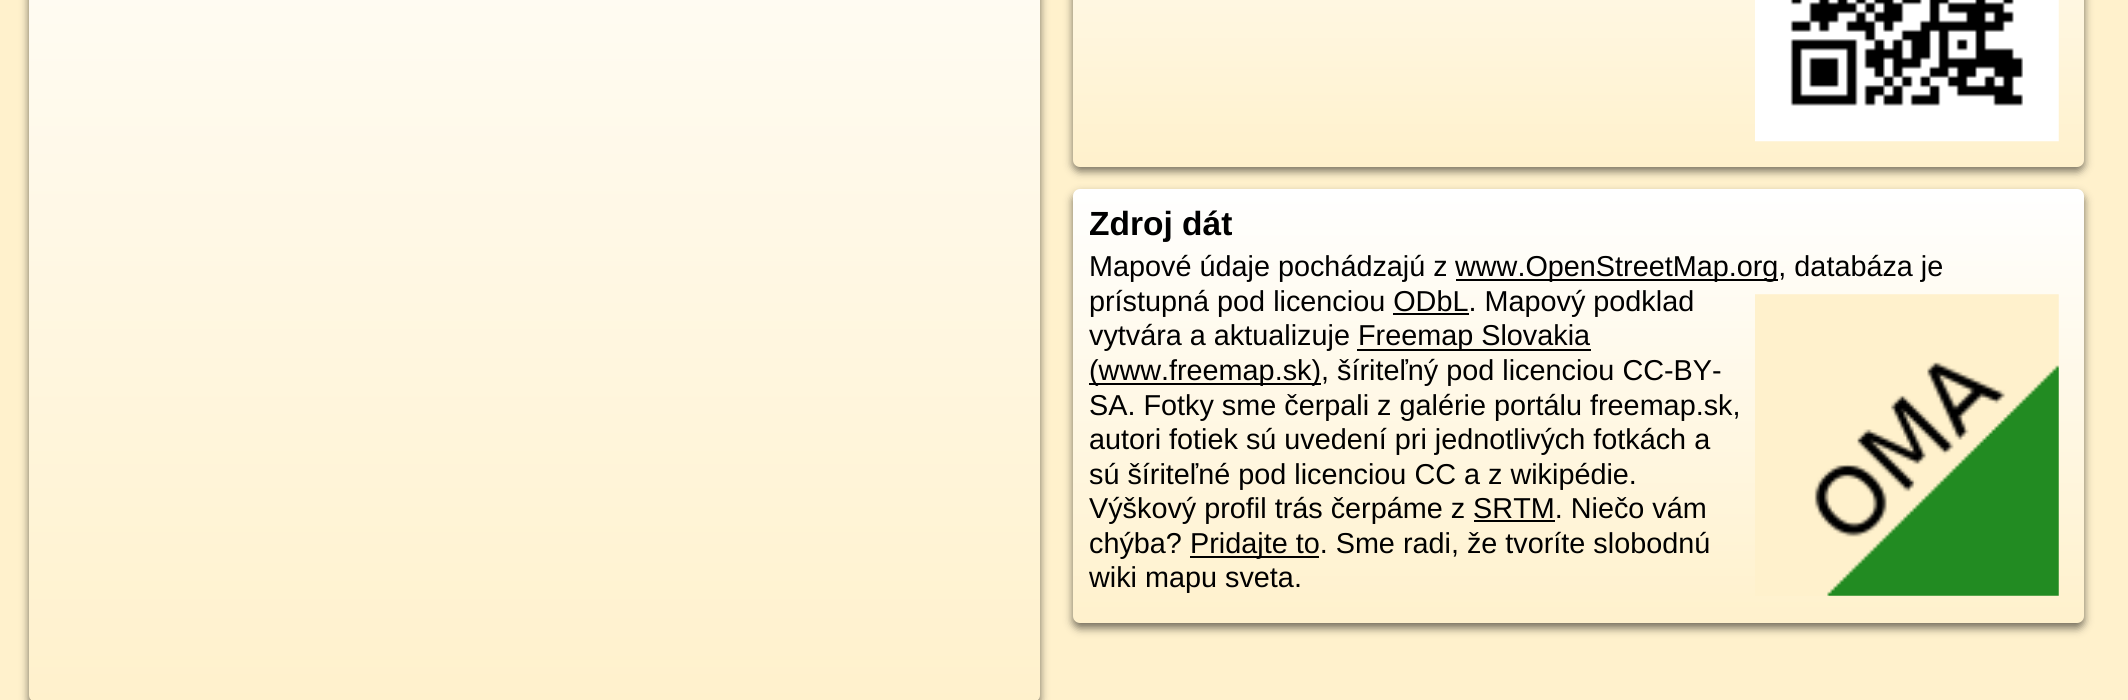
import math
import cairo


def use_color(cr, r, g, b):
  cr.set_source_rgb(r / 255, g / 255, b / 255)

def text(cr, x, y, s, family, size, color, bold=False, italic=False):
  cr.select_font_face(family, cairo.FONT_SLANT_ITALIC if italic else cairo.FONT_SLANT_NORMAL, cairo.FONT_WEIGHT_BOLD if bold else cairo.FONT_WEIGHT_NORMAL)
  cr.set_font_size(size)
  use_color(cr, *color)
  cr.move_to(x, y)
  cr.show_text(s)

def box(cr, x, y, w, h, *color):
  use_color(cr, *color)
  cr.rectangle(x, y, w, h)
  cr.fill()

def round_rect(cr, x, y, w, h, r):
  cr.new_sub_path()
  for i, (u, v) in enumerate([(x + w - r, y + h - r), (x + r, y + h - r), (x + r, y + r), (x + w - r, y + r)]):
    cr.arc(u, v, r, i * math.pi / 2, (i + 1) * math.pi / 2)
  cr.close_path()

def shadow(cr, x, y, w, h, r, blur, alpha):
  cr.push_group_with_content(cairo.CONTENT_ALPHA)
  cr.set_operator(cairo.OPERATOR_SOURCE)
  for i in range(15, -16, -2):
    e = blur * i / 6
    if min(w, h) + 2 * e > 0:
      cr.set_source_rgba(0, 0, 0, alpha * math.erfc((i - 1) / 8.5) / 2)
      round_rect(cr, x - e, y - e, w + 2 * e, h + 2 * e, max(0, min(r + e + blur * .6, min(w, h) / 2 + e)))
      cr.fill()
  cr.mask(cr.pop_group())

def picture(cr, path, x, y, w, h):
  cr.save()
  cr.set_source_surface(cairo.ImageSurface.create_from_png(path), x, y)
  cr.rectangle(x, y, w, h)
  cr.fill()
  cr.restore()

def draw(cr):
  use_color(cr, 255, 241, 204)
  cr.paint()
  use_color(cr, 0, 0, 0)
  shadow(cr, 29, -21, 1011, 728, 7, 4.5, 0.55)
  gradient = cairo.LinearGradient(534, -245, 534, 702)
  gradient.add_color_stop_rgba(0, 1, 1, 1, 1)
  gradient.add_color_stop_rgba(1, 1, 0.945, 0.8, 1)
  cr.set_source(gradient)
  round_rect(cr, 29, -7, 1011, 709, 7)
  cr.fill()
  use_color(cr, 0, 0, 0)
  shadow(cr, 1073, -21, 1011, 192, 7, 4.5, 0.55)
  gradient = cairo.LinearGradient(1578, -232, 1578, 167)
  gradient.add_color_stop_rgba(0, 1, 1, 1, 1)
  gradient.add_color_stop_rgba(1, 1, 0.945, 0.8, 1)
  cr.set_source(gradient)
  round_rect(cr, 1073, -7, 1011, 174, 7)
  cr.fill()
  picture(cr, "img_01.png", 1755, 0, 304, 142)
  use_color(cr, 0, 0, 0)
  shadow(cr, 1073, 194, 1011, 434, 7, 4.5, 0.55)
  gradient = cairo.LinearGradient(1578, 189, 1578, 623)
  gradient.add_color_stop_rgba(0, 1, 1, 1, 1)
  gradient.add_color_stop_rgba(1, 1, 0.945, 0.8, 1)
  cr.set_source(gradient)
  round_rect(cr, 1073, 189, 1011, 434, 7)
  cr.fill()
  box(cr, 1456, 279, 322, 2, 0, 0, 0)
  picture(cr, "img_02.png", 1755, 294, 304, 302)
  box(cr, 1393, 313, 76, 2, 0, 0, 0)
  box(cr, 1357, 349, 234, 2, 0, 0, 0)
  box(cr, 1089, 383, 232, 2, 0, 0, 0)
  box(cr, 1474, 520, 81, 2, 0, 0, 0)
  box(cr, 1190, 556, 129, 2, 0, 0, 0)
  text(cr, 1089, 235, "Zdroj dát", "Liberation Sans", 33.5, (0, 0, 0), bold=True)
  text(cr, 1089, 276, "Mapové údaje pochádzajú z", "Liberation Sans", 28.8, (0, 0, 0))
  text(cr, 1455, 276, "www.OpenStreetMap.org, databáza je", "Liberation Sans", 28.8, (0, 0, 0))
  text(cr, 1089, 311, "prístupná pod licenciou ODbL. Mapový podklad", "Liberation Sans", 28.8, (0, 0, 0))
  text(cr, 1089, 345, "vytvára a aktualizuje", "Liberation Sans", 28.8, (0, 0, 0))
  text(cr, 1358, 345, "Freemap Slovakia", "Liberation Sans", 28.8, (0, 0, 0))
  text(cr, 1089, 380, "(www.freemap.sk), šíriteľný pod licenciou CC-BY-", "Liberation Sans", 28.8, (0, 0, 0))
  text(cr, 1089, 415, "SA. Fotky sme čerpali z galérie portálu freemap.sk,", "Liberation Sans", 28.8, (0, 0, 0))
  text(cr, 1089, 449, "autori fotiek sú uvedení pri jednotlivých fotkách a", "Liberation Sans", 28.8, (0, 0, 0))
  text(cr, 1089, 484, "sú šíriteľné pod licenciou CC a z wikipédie.", "Liberation Sans", 28.8, (0, 0, 0))
  text(cr, 1089, 518, "Výškový profil trás čerpáme z SRTM. Niečo vám", "Liberation Sans", 28.8, (0, 0, 0))
  text(cr, 1089, 553, "chýba?", "Liberation Sans", 28.8, (0, 0, 0))
  text(cr, 1190, 553, "Pridajte to. Sme radi, že tvoríte slobodnú", "Liberation Sans", 28.8, (0, 0, 0))
  text(cr, 1089, 587, "wiki mapu sveta.", "Liberation Sans", 28.8, (0, 0, 0))


surface = cairo.ImageSurface(cairo.FORMAT_RGB24, 2128, 700)
cr = cairo.Context(surface)
options = cairo.FontOptions()
options.set_hint_metrics(cairo.HINT_METRICS_OFF)
options.set_hint_style(cairo.HINT_STYLE_NONE)
cr.set_font_options(options)
cr.set_miter_limit(4)
draw(cr)
surface.write_to_png("out.png")
